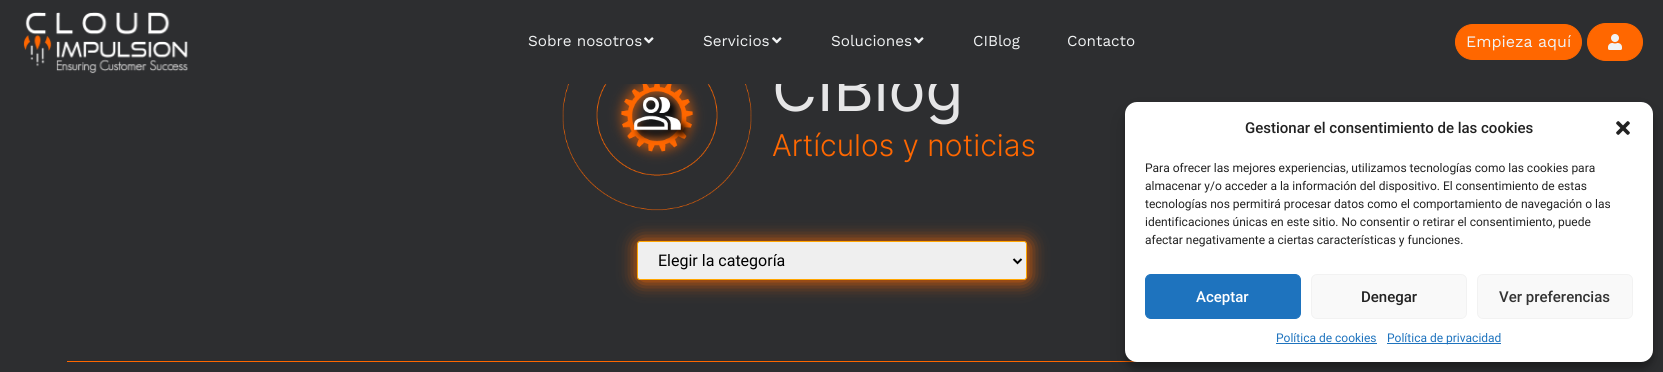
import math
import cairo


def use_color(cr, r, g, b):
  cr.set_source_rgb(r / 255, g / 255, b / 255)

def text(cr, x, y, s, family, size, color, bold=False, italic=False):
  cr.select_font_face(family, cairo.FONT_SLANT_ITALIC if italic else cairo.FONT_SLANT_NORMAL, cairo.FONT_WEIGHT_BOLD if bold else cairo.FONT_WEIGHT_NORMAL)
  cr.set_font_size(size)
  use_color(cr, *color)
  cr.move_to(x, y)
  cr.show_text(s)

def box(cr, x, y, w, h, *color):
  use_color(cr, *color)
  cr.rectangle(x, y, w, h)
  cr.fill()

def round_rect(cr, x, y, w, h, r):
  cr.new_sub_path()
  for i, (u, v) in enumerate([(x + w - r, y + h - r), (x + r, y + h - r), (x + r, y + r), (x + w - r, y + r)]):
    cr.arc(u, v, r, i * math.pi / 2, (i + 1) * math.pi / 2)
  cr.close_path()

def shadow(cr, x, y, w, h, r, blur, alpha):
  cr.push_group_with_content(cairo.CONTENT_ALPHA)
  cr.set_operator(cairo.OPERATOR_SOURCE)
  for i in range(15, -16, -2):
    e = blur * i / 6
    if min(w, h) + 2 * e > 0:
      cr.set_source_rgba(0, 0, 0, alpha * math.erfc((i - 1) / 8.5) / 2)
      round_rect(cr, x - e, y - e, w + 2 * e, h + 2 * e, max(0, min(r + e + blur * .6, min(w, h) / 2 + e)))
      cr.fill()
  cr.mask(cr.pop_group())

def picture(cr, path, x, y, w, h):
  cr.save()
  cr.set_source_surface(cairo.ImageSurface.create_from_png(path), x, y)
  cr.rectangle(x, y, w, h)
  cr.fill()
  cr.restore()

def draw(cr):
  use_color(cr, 45, 46, 48)
  cr.paint()
  picture(cr, "img_01.png", 23, 12, 166, 62)
  picture(cr, "img_02.png", 644, 37, 10, 7)
  picture(cr, "img_02.png", 772, 37, 10, 7)
  picture(cr, "img_02.png", 914, 37, 10, 7)
  use_color(cr, 255, 103, 0)
  round_rect(cr, 1455.5, 24.5, 126, 35, 17.5)
  cr.fill_preserve()
  cr.set_line_width(1)
  cr.stroke()
  round_rect(cr, 1587.5, 23.5, 55, 37, 18.5)
  cr.fill_preserve()
  cr.stroke()
  picture(cr, "img_03.png", 1608, 34, 14, 16)
  picture(cr, "img_04.png", 562, 84, 190, 127)
  use_color(cr, 255, 103, 0)
  shadow(cr, 638, 242, 390, 39, 3, 9, 1)
  use_color(cr, 239, 239, 239)
  round_rect(cr, 637.5, 241.5, 389, 38, 2.5)
  cr.fill_preserve()
  use_color(cr, 255, 165, 0)
  cr.stroke()
  cr.new_path()
  cr.move_to(1013.5, 259)
  cr.line_to(1017.5, 263)
  cr.line_to(1021.5, 259)
  use_color(cr, 0, 0, 0)
  cr.set_line_width(2)
  cr.stroke()
  box(cr, 67, 361, 1070, 1, 255, 103, 0)
  use_color(cr, 0, 0, 0)
  shadow(cr, 1125, 108, 528, 260, 12, 3, 0.23)
  shadow(cr, 1125, 112, 528, 260, 12, 10, 0.19)
  use_color(cr, 255, 255, 255)
  round_rect(cr, 1125, 102, 528, 260, 12)
  cr.fill()
  picture(cr, "img_05.png", 1616, 121, 14, 14)
  use_color(cr, 30, 115, 190)
  round_rect(cr, 1145.5, 274.5, 155, 44, 5.5)
  cr.fill_preserve()
  cr.set_line_width(1)
  cr.stroke()
  use_color(cr, 249, 249, 249)
  round_rect(cr, 1311.5, 274.5, 155, 44, 5.5)
  cr.fill_preserve()
  use_color(cr, 242, 242, 242)
  cr.stroke()
  use_color(cr, 249, 249, 249)
  round_rect(cr, 1477.5, 274.5, 155, 44, 5.5)
  cr.fill_preserve()
  use_color(cr, 242, 242, 242)
  cr.stroke()
  box(cr, 1276, 343, 101, 1, 30, 115, 190)
  box(cr, 1387, 343, 114, 1, 30, 115, 190)
  text(cr, 528, 46, "Sobre nosotros", "Work Sans", 15.25, (241, 243, 244))
  text(cr, 703, 46, "Servicios", "Work Sans", 15.25, (241, 243, 244))
  text(cr, 831, 46, "Soluciones", "Work Sans", 15.25, (241, 243, 244))
  text(cr, 973, 46, "CIBlog", "Work Sans", 15.25, (241, 243, 244))
  text(cr, 1067, 46, "Contacto", "Work Sans", 15.25, (241, 243, 244))
  text(cr, 1466, 47, "Empieza aquí", "Work Sans", 16, (241, 243, 244))
  text(cr, 772, 111, "CIBlog", "Inter", 62, (230, 230, 231))
  box(cr, 775, 65, 184, 19, 45, 46, 48)
  text(cr, 772, 156, "Artículos y noticias", "Inter Light", 30, (255, 103, 0))
  text(cr, 658, 266, "Elegir la categoría", "Roboto", 16, (0, 0, 0))
  text(cr, 1245, 133, "Gestionar el consentimiento de las cookies", "Roboto Medium", 15, (34, 34, 34))
  text(cr, 1145, 172, "Para ofrecer las mejores experiencias, utilizamos tecnologías como las cookies para", "Roboto", 12, (34, 34, 34))
  text(cr, 1145, 190, "almacenar y/o acceder a la información del dispositivo. El consentimiento de estas", "Roboto", 12, (34, 34, 34))
  text(cr, 1145, 208, "tecnologías nos permitirá procesar datos como el comportamiento de navegación o las", "Roboto", 12, (34, 34, 34))
  text(cr, 1145, 226, "identificaciones únicas en este sitio. No consentir o retirar el consentimiento, puede", "Roboto", 12, (34, 34, 34))
  text(cr, 1145, 244, "afectar negativamente a ciertas características y funciones.", "Roboto", 12, (34, 34, 34))
  text(cr, 1196, 302, "Aceptar", "Roboto Medium", 15, (255, 255, 255))
  text(cr, 1361, 302, "Denegar", "Roboto Medium", 15, (34, 34, 34))
  text(cr, 1499, 302, "Ver preferencias", "Roboto Medium", 15, (51, 51, 51))
  text(cr, 1276, 342, "Política de cookies", "Roboto", 12, (30, 115, 190))
  text(cr, 1387, 342, "Política de privacidad", "Roboto", 12, (30, 115, 190))


surface = cairo.ImageSurface(cairo.FORMAT_RGB24, 1663, 372)
cr = cairo.Context(surface)
options = cairo.FontOptions()
options.set_hint_metrics(cairo.HINT_METRICS_OFF)
options.set_hint_style(cairo.HINT_STYLE_NONE)
cr.set_font_options(options)
cr.set_miter_limit(4)
draw(cr)
surface.write_to_png("out.png")
